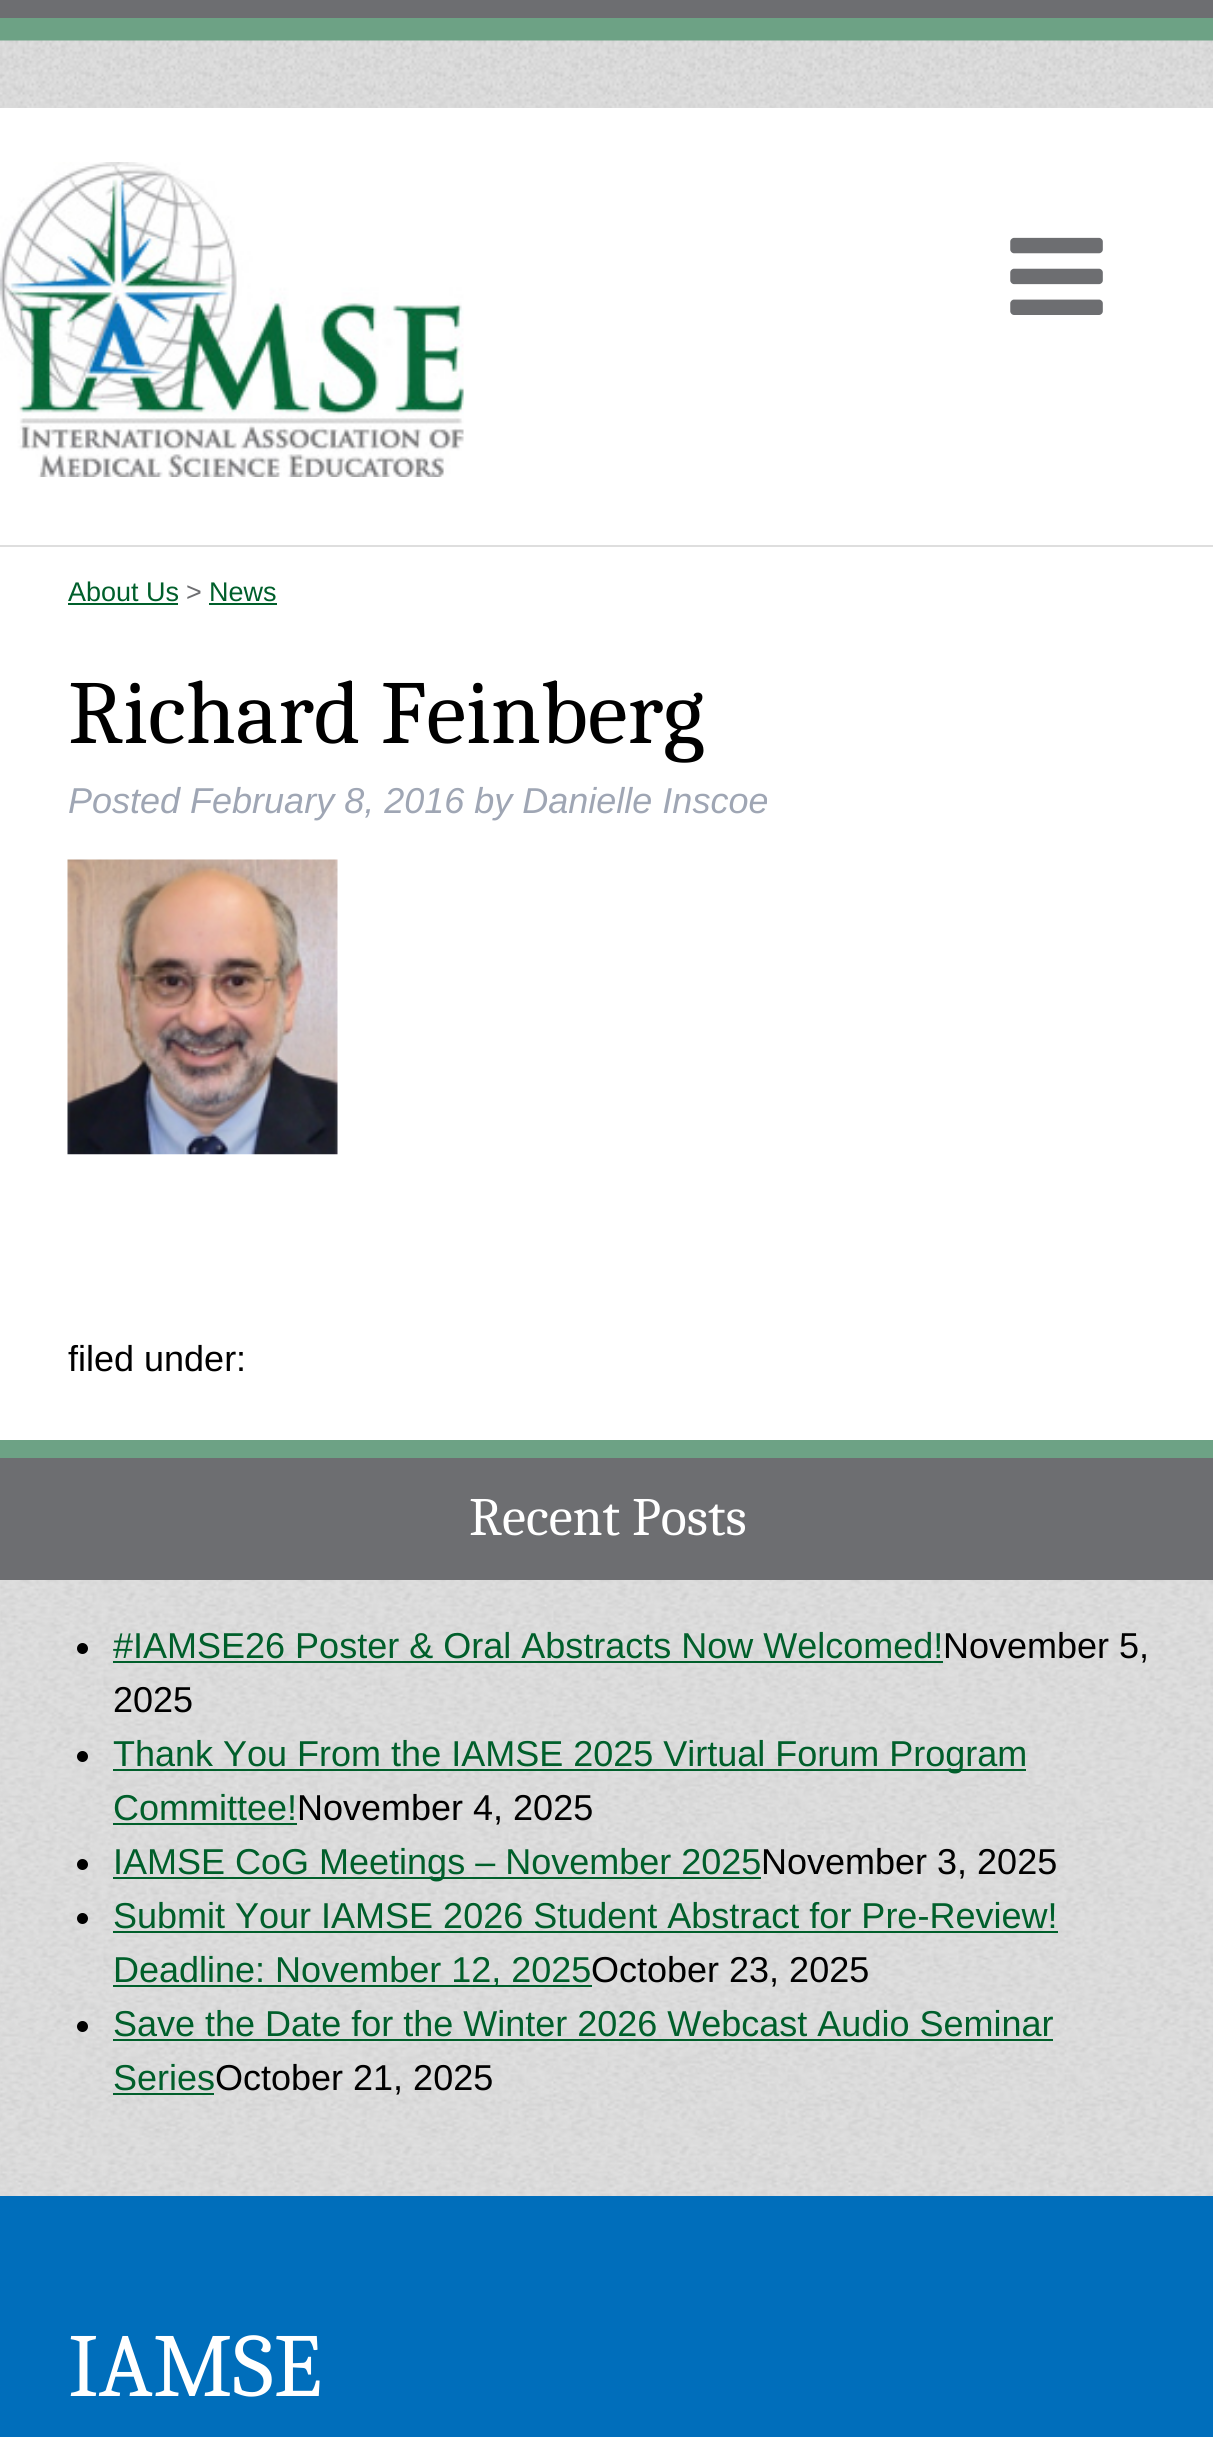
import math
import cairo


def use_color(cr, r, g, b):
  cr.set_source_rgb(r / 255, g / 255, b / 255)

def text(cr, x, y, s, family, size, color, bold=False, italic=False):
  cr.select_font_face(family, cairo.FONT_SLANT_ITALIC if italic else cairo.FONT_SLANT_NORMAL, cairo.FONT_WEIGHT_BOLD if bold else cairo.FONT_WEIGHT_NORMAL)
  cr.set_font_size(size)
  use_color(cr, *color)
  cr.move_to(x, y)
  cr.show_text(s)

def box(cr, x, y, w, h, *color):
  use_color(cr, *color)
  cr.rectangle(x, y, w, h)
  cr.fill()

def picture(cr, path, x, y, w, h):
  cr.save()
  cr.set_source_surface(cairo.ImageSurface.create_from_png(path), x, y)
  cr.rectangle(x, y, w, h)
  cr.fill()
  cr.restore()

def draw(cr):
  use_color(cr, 109, 110, 113)
  cr.paint()
  box(cr, 0, 108, 1213, 1332, 255, 255, 255)
  box(cr, 0, 545, 1213, 2, 222, 222, 222)
  box(cr, 0, 18, 1213, 23, 109, 162, 133)
  picture(cr, "img_01.png", 0, 40, 1213, 68)
  picture(cr, "img_02.png", 1010, 237, 93, 78)
  picture(cr, "img_03.png", 0, 162, 464, 315)
  box(cr, 68, 603, 110, 2, 0, 95, 43)
  box(cr, 209, 603, 68, 2, 0, 95, 43)
  picture(cr, "img_04.png", 67, 859, 271, 296)
  picture(cr, "img_05.png", 0, 1580, 1213, 616)
  box(cr, 0, 1440, 1213, 18, 109, 162, 133)
  use_color(cr, 0, 0, 0)
  cr.arc(82.5, 1648.5, 5.5, 0, 2 * math.pi)
  cr.fill()
  box(cr, 113, 1661, 830, 2, 0, 95, 43)
  use_color(cr, 0, 0, 0)
  cr.arc(82.5, 1756.5, 5.5, 0, 2 * math.pi)
  cr.fill()
  box(cr, 113, 1769, 913, 2, 0, 95, 43)
  box(cr, 113, 1823, 184, 2, 0, 95, 43)
  use_color(cr, 0, 0, 0)
  cr.arc(82.5, 1864.5, 5.5, 0, 2 * math.pi)
  cr.fill()
  box(cr, 113, 1877, 648, 2, 0, 95, 43)
  use_color(cr, 0, 0, 0)
  cr.arc(82.5, 1918.5, 5.5, 0, 2 * math.pi)
  cr.fill()
  box(cr, 113, 1931, 945, 2, 0, 95, 43)
  box(cr, 113, 1985, 479, 2, 0, 95, 43)
  use_color(cr, 0, 0, 0)
  cr.arc(82.5, 2026.5, 5.5, 0, 2 * math.pi)
  cr.fill()
  box(cr, 113, 2039, 940, 2, 0, 95, 43)
  box(cr, 113, 2093, 101, 2, 0, 95, 43)
  box(cr, 0, 2196, 1213, 241, 0, 110, 187)
  text(cr, 68, 601, "About Us", "Liberation Sans", 27, (0, 95, 43))
  text(cr, 186, 601, ">", "Liberation Sans", 27, (109, 110, 113))
  text(cr, 209, 601, "News", "Liberation Sans", 27, (0, 95, 43))
  text(cr, 68, 743, "Richard Feinberg", "Caladea", 90, (0, 0, 0))
  text(cr, 68, 813, "Posted February 8, 2016 by Danielle Inscoe", "Liberation Sans", 36, (159, 166, 180), italic=True)
  text(cr, 68, 1371, "filed under:", "Liberation Sans", 36, (0, 0, 0))
  text(cr, 469, 1535, "Recent Posts", "Caladea", 54, (255, 255, 255))
  text(cr, 113, 1658, "#IAMSE26 Poster & Oral Abstracts Now Welcomed!", "Liberation Sans", 36, (0, 95, 43))
  text(cr, 943, 1658, "November 5,", "Liberation Sans", 36, (0, 0, 0))
  text(cr, 113, 1712, "2025", "Liberation Sans", 36, (0, 0, 0))
  text(cr, 113, 1766, "Thank You From the IAMSE 2025 Virtual Forum Program", "Liberation Sans", 36, (0, 95, 43))
  text(cr, 113, 1820, "Committee!", "Liberation Sans", 36, (0, 95, 43))
  text(cr, 297, 1820, "November 4, 2025", "Liberation Sans", 36, (0, 0, 0))
  text(cr, 113, 1874, "IAMSE CoG Meetings – November 2025", "Liberation Sans", 36, (0, 95, 43))
  text(cr, 761, 1874, "November 3, 2025", "Liberation Sans", 36, (0, 0, 0))
  text(cr, 113, 1928, "Submit Your IAMSE 2026 Student Abstract for Pre-Review!", "Liberation Sans", 36, (0, 95, 43))
  text(cr, 113, 1982, "Deadline: November 12, 2025", "Liberation Sans", 36, (0, 95, 43))
  text(cr, 591, 1982, "October 23, 2025", "Liberation Sans", 36, (0, 0, 0))
  text(cr, 113, 2036, "Save the Date for the Winter 2026 Webcast Audio Seminar", "Liberation Sans", 36, (0, 95, 43))
  text(cr, 113, 2090, "Series", "Liberation Sans", 36, (0, 95, 43))
  text(cr, 215, 2090, "October 21, 2025", "Liberation Sans", 36, (0, 0, 0))
  text(cr, 68, 2396, "IAMSE", "Caladea", 90, (255, 255, 255))


surface = cairo.ImageSurface(cairo.FORMAT_RGB24, 1213, 2437)
cr = cairo.Context(surface)
options = cairo.FontOptions()
options.set_hint_metrics(cairo.HINT_METRICS_OFF)
options.set_hint_style(cairo.HINT_STYLE_NONE)
cr.set_font_options(options)
cr.set_miter_limit(4)
draw(cr)
surface.write_to_png("out.png")
